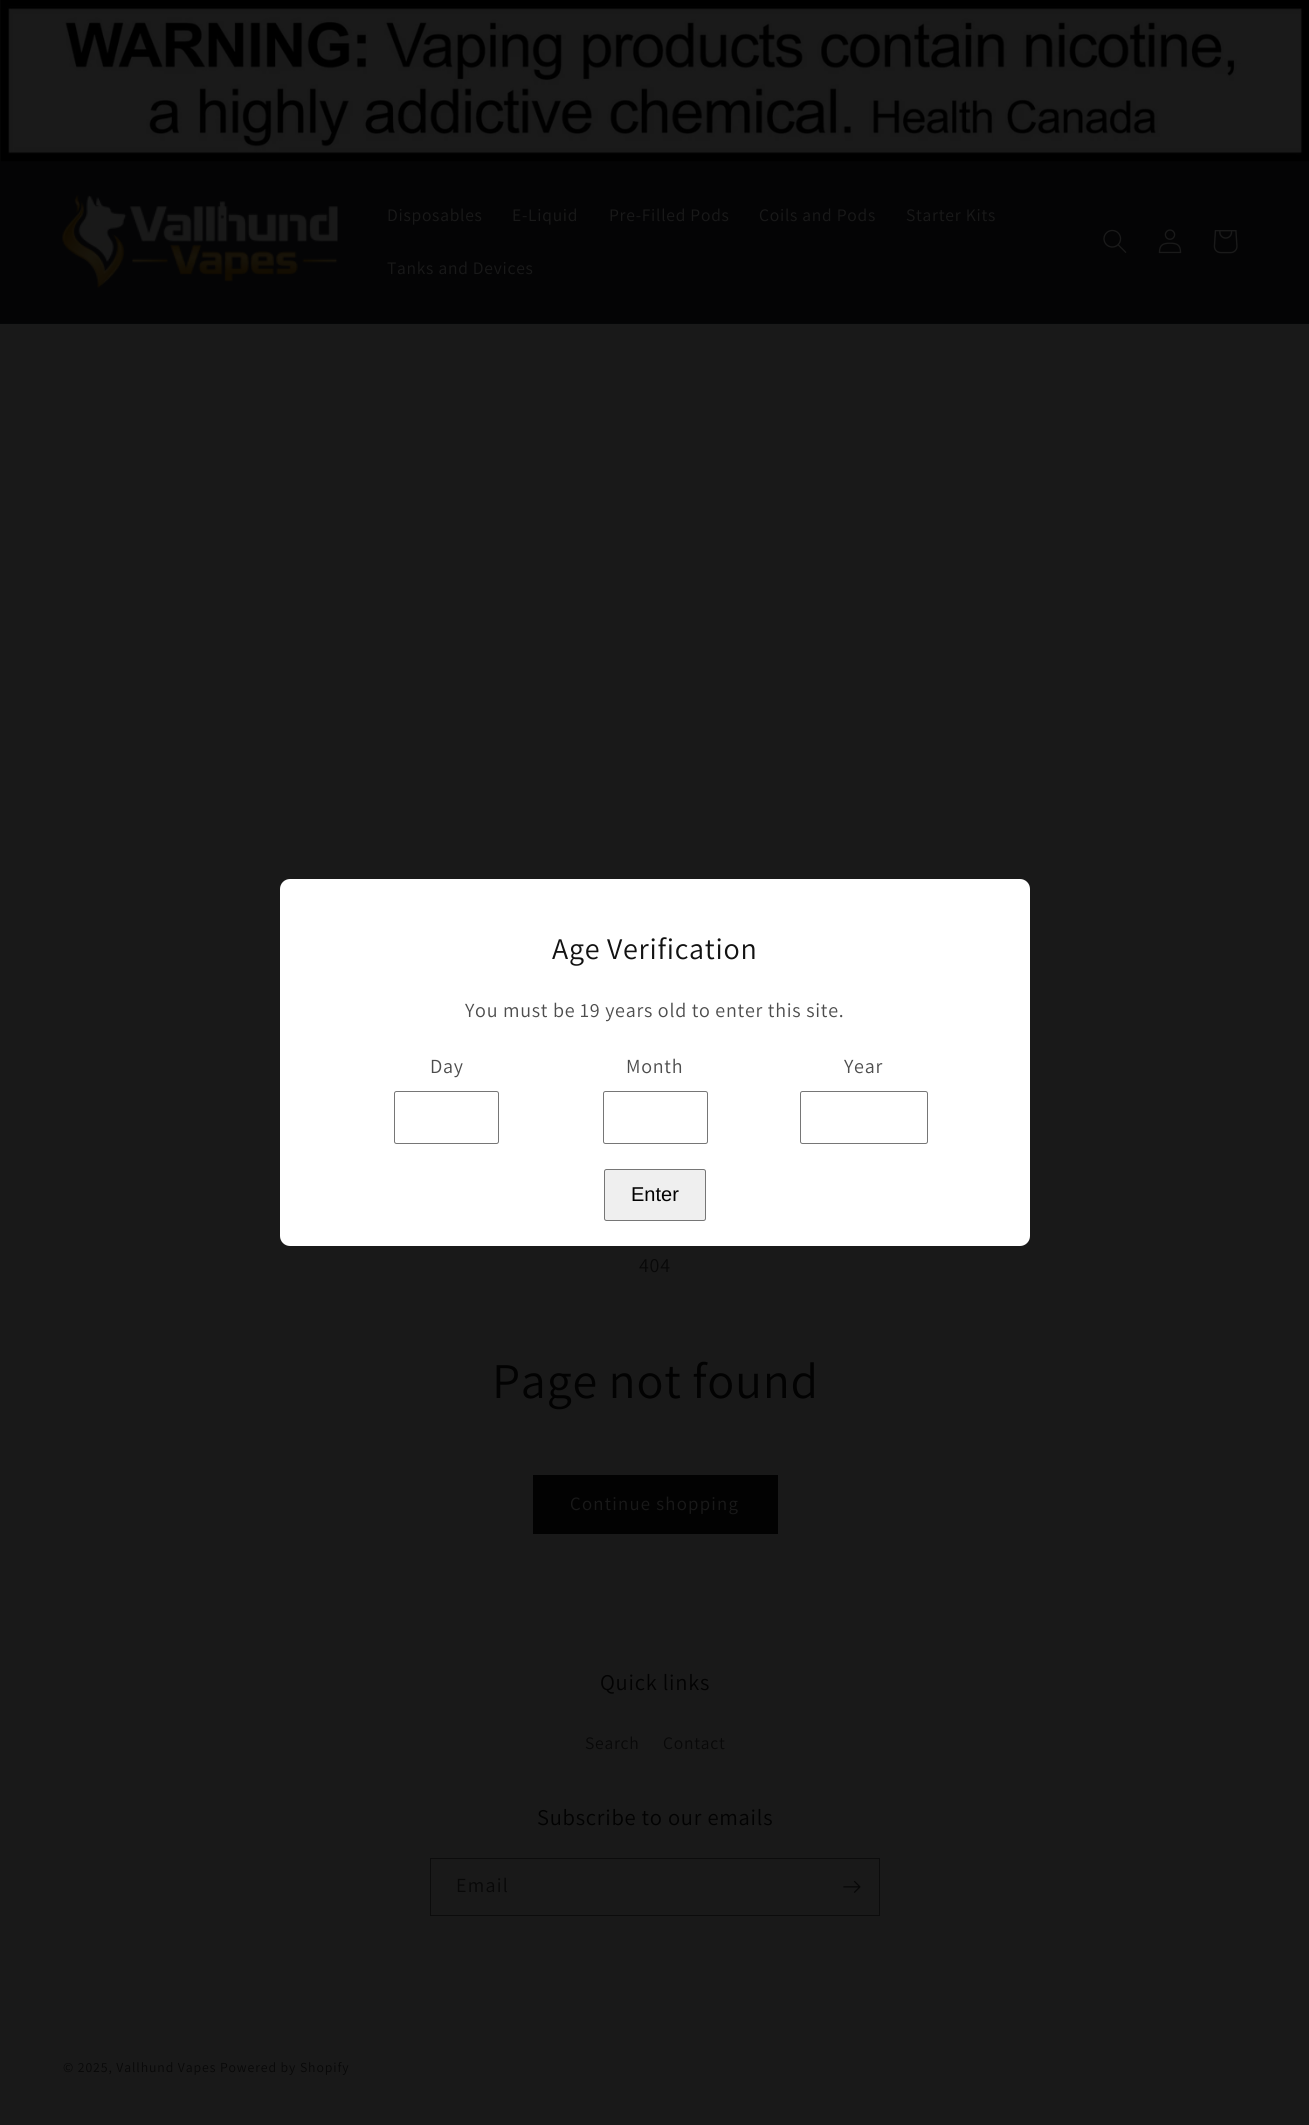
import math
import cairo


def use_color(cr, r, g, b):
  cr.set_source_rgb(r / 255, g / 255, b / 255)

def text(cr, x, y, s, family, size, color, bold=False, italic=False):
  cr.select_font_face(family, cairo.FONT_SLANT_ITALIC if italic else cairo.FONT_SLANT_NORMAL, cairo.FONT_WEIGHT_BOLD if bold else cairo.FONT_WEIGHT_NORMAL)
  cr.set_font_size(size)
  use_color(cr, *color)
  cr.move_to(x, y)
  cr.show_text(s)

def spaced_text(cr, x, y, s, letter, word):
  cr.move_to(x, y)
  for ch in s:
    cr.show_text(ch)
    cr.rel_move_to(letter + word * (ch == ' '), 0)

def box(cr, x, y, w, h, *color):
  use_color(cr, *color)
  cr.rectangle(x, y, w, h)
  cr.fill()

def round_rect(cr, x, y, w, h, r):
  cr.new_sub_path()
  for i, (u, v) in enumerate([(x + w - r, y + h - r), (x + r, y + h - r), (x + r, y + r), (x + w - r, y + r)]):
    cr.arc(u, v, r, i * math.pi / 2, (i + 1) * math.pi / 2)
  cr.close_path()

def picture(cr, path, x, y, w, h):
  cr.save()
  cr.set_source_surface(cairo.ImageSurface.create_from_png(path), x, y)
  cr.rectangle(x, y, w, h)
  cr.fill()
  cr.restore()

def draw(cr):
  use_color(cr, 25, 25, 25)
  cr.paint()
  box(cr, 0, 161, 1309, 162, 4, 4, 5)
  picture(cr, "img_01.png", 0, 0, 1309, 162)
  box(cr, 0, 323, 1309, 1, 5, 6, 7)
  picture(cr, "img_02.png", 62, 195, 276, 93)
  picture(cr, "img_03.png", 1103, 229, 24, 24)
  picture(cr, "img_04.png", 1158, 229, 24, 25)
  picture(cr, "img_05.png", 1213, 230, 25, 24)
  use_color(cr, 255, 255, 255)
  round_rect(cr, 280, 879, 750, 367, 10)
  cr.fill()
  round_rect(cr, 394.5, 1091.5, 104, 52, 2)
  use_color(cr, 118, 118, 118)
  cr.set_line_width(1)
  cr.stroke()
  round_rect(cr, 603.5, 1091.5, 104, 52, 2)
  cr.stroke()
  round_rect(cr, 800.5, 1091.5, 127, 52, 2)
  cr.stroke()
  use_color(cr, 239, 239, 239)
  round_rect(cr, 604.5, 1169.5, 101, 51, 2)
  cr.fill_preserve()
  use_color(cr, 118, 118, 118)
  cr.stroke()
  box(cr, 533, 1475, 245, 59, 2, 2, 2)
  cr.rectangle(430.5, 1858.5, 449, 57)
  use_color(cr, 12, 12, 12)
  cr.stroke()
  picture(cr, "img_06.png", 843, 1880, 18, 13)
  cr.select_font_face("Assistant")
  cr.set_font_size(17.5)
  use_color(cr, 25, 25, 25)
  spaced_text(cr, 387, 221, "Disposables", 0.75, 0)
  spaced_text(cr, 512, 221, "E-Liquid", 0.75, 0)
  spaced_text(cr, 609, 221, "Pre-Filled Pods", 0.75, 0)
  spaced_text(cr, 759, 221, "Coils and Pods", 0.75, 0)
  spaced_text(cr, 906, 221, "Starter Kits", 0.75, 0)
  spaced_text(cr, 387, 274, "Tanks and Devices", 0.75, 0)
  cr.set_font_size(30)
  use_color(cr, 18, 18, 18)
  spaced_text(cr, 552, 959, "Age Verification", 0.75, 0)
  cr.set_font_size(20)
  use_color(cr, 77, 77, 77)
  spaced_text(cr, 465, 1017, "You must be 19 years old to enter this site.", 0.75, 0)
  spaced_text(cr, 430, 1073, "Day", 0.75, 0)
  spaced_text(cr, 626, 1073, "Month", 0.75, 0)
  spaced_text(cr, 844, 1073, "Year", 0.75, 0)
  text(cr, 631, 1201, "Enter", "Liberation Sans", 20, (2, 2, 2))
  cr.select_font_face("Assistant")
  use_color(cr, 8, 8, 8)
  spaced_text(cr, 639, 1272, "404", 0.75, 0)
  cr.set_font_size(50)
  use_color(cr, 2, 2, 2)
  spaced_text(cr, 492, 1398, "Page not found", 0.75, 0)
  cr.set_font_size(18.75)
  use_color(cr, 25, 25, 25)
  spaced_text(cr, 570, 1510, "Continue shopping", 1.25, 0)
  cr.set_font_size(22.5)
  use_color(cr, 2, 2, 2)
  spaced_text(cr, 600, 1690, "Quick links", 0.75, 0)
  cr.set_font_size(17.5)
  use_color(cr, 8, 8, 8)
  spaced_text(cr, 585, 1749, "Search", 0.75, 0)
  spaced_text(cr, 663, 1749, "Contact", 0.75, 0)
  cr.set_font_size(22.5)
  use_color(cr, 2, 2, 2)
  spaced_text(cr, 537, 1825, "Subscribe to our emails", 0.75, 0)
  cr.set_font_size(20)
  use_color(cr, 8, 8, 8)
  spaced_text(cr, 456, 1892, "Email", 1.25, 0)
  cr.set_font_size(13.75)
  spaced_text(cr, 63, 2072, "© 2025, Vallhund Vapes Powered by Shopify", 0.9, 0)


surface = cairo.ImageSurface(cairo.FORMAT_RGB24, 1309, 2125)
cr = cairo.Context(surface)
options = cairo.FontOptions()
options.set_hint_metrics(cairo.HINT_METRICS_OFF)
options.set_hint_style(cairo.HINT_STYLE_NONE)
cr.set_font_options(options)
cr.set_miter_limit(4)
draw(cr)
surface.write_to_png("out.png")
